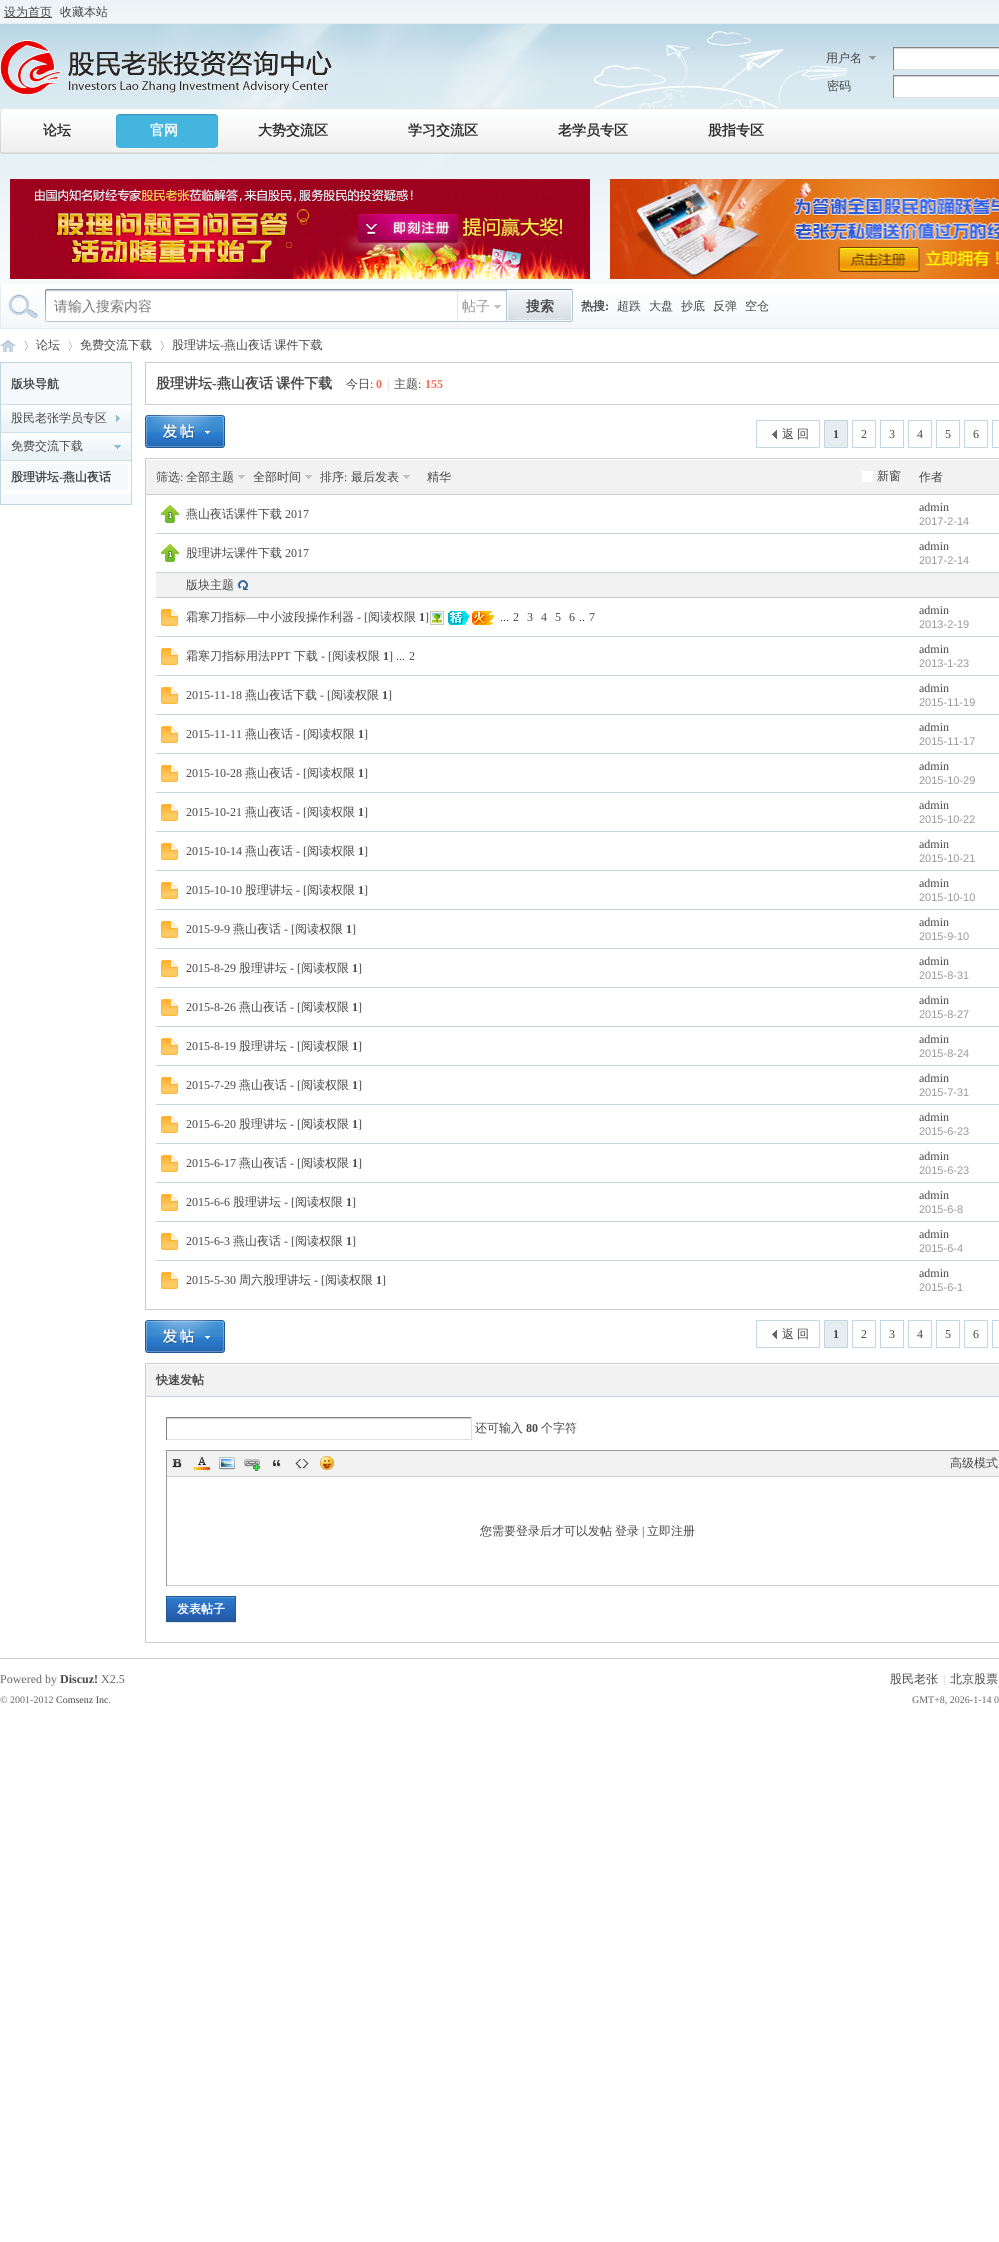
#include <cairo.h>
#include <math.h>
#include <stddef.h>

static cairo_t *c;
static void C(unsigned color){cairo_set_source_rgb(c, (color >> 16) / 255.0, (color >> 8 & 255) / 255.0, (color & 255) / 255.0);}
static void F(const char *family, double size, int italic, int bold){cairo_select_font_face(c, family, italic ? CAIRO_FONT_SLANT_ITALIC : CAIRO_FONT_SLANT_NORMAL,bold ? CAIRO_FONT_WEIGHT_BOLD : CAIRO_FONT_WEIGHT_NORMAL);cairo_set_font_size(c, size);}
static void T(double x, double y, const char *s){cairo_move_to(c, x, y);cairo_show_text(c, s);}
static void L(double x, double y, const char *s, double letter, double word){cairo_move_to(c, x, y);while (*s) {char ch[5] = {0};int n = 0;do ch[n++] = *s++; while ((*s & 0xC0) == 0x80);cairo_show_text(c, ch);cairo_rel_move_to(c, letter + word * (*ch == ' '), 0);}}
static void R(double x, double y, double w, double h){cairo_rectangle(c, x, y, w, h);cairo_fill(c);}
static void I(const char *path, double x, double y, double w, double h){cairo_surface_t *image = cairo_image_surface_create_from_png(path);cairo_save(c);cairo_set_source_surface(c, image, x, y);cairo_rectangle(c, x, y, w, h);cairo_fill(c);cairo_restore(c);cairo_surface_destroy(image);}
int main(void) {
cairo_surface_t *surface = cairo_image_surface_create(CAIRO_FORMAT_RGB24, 999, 2242);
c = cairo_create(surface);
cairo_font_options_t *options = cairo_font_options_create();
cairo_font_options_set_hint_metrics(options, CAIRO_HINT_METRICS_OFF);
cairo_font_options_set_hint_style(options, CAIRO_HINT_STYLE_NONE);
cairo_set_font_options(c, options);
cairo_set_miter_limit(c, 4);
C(0xffffff);
cairo_paint(c);
I("1.png",0,0,999,284);
C(0x464646);
R(4,17,48,1);
F("WenQuanYi Zen Hei Medium",12,0,0);
T(4,16,"设为首页");
T(60,16,"收藏本站");
I("2.png",0,40,332,55);
I("3.png",869,56,7,4);
T(826,62,"用户名");
C(0xffffff);
R(894,49,105,20);
C(0xd4d4d4);
R(893,48,106,1);
C(0x848484);
R(893,47,106,1);
C(0xe0e0e0);
R(893,69,106,1);
C(0x848484);
R(893,47,1,23);
C(0x464646);
T(827,90,"密码");
C(0xffffff);
R(894,77,105,20);
C(0xd4d4d4);
R(893,76,106,1);
C(0x848484);
R(893,75,106,1);
C(0xe0e0e0);
R(893,97,106,1);
C(0x848484);
R(893,75,1,23);
I("4.png",0,108,999,46);
F("WenQuanYi Zen Hei",14,0,1);
C(0x2f2e2e);
T(43,135,"论坛");
I("5.png",116,114,102,35);
C(0xffffff);
T(150,135,"官网");
C(0x2f2e2e);
T(258,135,"大势交流区");
T(408,135,"学习交流区");
T(558,135,"老学员专区");
T(708,135,"股指专区");
I("6.png",10,179,580,100);
I("7.png",610,179,389,100);
I("8.png",1,284,998,44);
C(0xe5edf2);
R(0,328,999,1);
R(0,284,1,45);
I("9.png",8,289,43,33);
I("10.png",51,289,406,33);
F("WenQuanYi Zen Hei Medium",14,0,0);
C(0x757575);
T(54,311,"请输入搜索内容");
I("11.png",457,289,49,33);
I("12.png",494,305,7,4);
C(0x999999);
T(462,311,"帖子");
I("13.png",506,289,67,33);
C(0xe5e5e5);
R(516,318,48,1);
F("WenQuanYi Zen Hei",14,0,1);
C(0x464646);
T(526,311,"搜索");
F("WenQuanYi Zen Hei",12,0,1);
T(581,310,"热搜");
F("Liberation Serif",12,0,1);
T(605,310,":");
F("WenQuanYi Zen Hei Medium",12,0,0);
T(617,310,"超跌");
T(649,310,"大盘");
T(681,310,"抄底");
T(713,310,"反弹");
T(745,310,"空仓");
I("14.png",0,340,16,12);
I("15.png",25,341,3,10);
T(36,349,"论坛");
I("15.png",69,341,3,10);
T(80,349,"免费交流下载");
I("15.png",161,341,3,10);
T(172,349,"股理讲坛");
F("Liberation Serif",12,0,0);
T(220,349,"-");
F("WenQuanYi Zen Hei Medium",12,0,0);
L(224,349,"燕山夜话 课件下载",0,-1);
C(0xf5f9fb);
cairo_rectangle(c,.5,362.5,131,142);
cairo_fill_preserve(c);
C(0xbdd7e3);
cairo_set_line_width(c,1);
cairo_stroke(c);
F("WenQuanYi Zen Hei",12,0,1);
C(0x464646);
T(11,388,"版块导航");
I("16.png",1,405,130,27);
C(0xcce0eb);
R(1,404,130,1);
F("WenQuanYi Zen Hei Medium",12,0,0);
C(0x464646);
T(11,422,"股民老张学员专区");
C(0xffffff);
R(1,461,130,33);
I("17.png",1,433,130,27);
C(0xcce0eb);
R(1,432,130,1);
R(1,460,130,1);
C(0x464646);
T(11,450,"免费交流下载");
C(0xf5f9fb);
R(4,464,124,26);
F("WenQuanYi Zen Hei",12,0,1);
C(0x464646);
T(11,481,"股理讲坛");
F("Liberation Serif",12,0,1);
T(59,481,"-");
F("WenQuanYi Zen Hei",12,0,1);
T(63,481,"燕山夜话");
cairo_rectangle(c,145.5,362.5,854,42);
C(0xcdcdcd);
cairo_stroke(c);
F("WenQuanYi Zen Hei",14,0,1);
C(0x464646);
T(156,388,"股理讲坛");
F("Liberation Serif",14,0,1);
T(212,388,"-");
F("WenQuanYi Zen Hei",14,0,1);
L(217,388,"燕山夜话 课件下载",0,-1);
F("WenQuanYi Zen Hei Medium",12,0,0);
T(346,388,"今日");
F("Liberation Serif",12,0,0);
T(370,388,":");
F("Liberation Serif",12,0,1);
C(0xf26c4f);
T(376,388,"0");
F("Liberation Serif",12,0,0);
C(0xcccccc);
T(387,388,"|");
F("WenQuanYi Zen Hei Medium",12,0,0);
C(0x464646);
T(394,388,"主题");
F("Liberation Serif",12,0,0);
T(418,388,":");
F("Liberation Serif",12,0,1);
C(0xf26c4f);
T(425,388,"155");
I("18.png",145,415,80,33);
I("19.png",772,430,5,9);
cairo_rectangle(c,756.5,420.5,63,27);
C(0xc2d5e3);
cairo_stroke(c);
F("WenQuanYi Zen Hei Medium",12,0,0);
C(0x464646);
T(782,438,"返");
T(797,438,"回");
C(0xe5edf2);
cairo_rectangle(c,824.5,420.5,23,27);
cairo_fill_preserve(c);
C(0xc2d5e3);
cairo_stroke(c);
F("Liberation Serif",12,0,1);
C(0x464646);
T(833,438,"1");
cairo_rectangle(c,852.5,420.5,23,27);
C(0xc2d5e3);
cairo_stroke(c);
F("Liberation Serif",12,0,0);
C(0x464646);
T(861,438,"2");
cairo_rectangle(c,880.5,420.5,23,27);
C(0xc2d5e3);
cairo_stroke(c);
C(0x464646);
T(889,438,"3");
cairo_rectangle(c,908.5,420.5,23,27);
C(0xc2d5e3);
cairo_stroke(c);
C(0x464646);
T(917,438,"4");
cairo_rectangle(c,936.5,420.5,23,27);
C(0xc2d5e3);
cairo_stroke(c);
C(0x464646);
T(945,438,"5");
cairo_rectangle(c,964.5,420.5,23,27);
C(0xc2d5e3);
cairo_stroke(c);
C(0x464646);
T(973,438,"6");
cairo_rectangle(c,992.5,420.5,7,27);
C(0xc2d5e3);
cairo_stroke(c);
cairo_rectangle(c,145.5,458.5,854,851);
C(0xcdcdcd);
cairo_stroke(c);
C(0xf2f2f2);
R(146,460,853,34);
C(0xcdcdcd);
R(146,494,853,1);
F("WenQuanYi Zen Hei Medium",12,0,0);
C(0x464646);
T(156,481,"筛选");
F("Liberation Serif",12,0,0);
T(180,481,":");
F("WenQuanYi Zen Hei Medium",12,0,0);
T(186,481,"全部主题");
I("20.png",238,475,7,4);
T(253,481,"全部时间");
I("20.png",305,475,7,4);
T(320,481,"排序");
F("Liberation Serif",12,0,0);
T(344,481,":");
F("WenQuanYi Zen Hei Medium",12,0,0);
T(351,481,"最后发表");
I("20.png",403,475,7,4);
T(427,481,"精华");
C(0xffffff);
R(862,471,11,11);
C(0x464646);
T(877,480,"新窗");
T(919,481,"作者");
F("Liberation Serif",12,0,0);
T(919,511,"admin");
F("Liberation Sans",11,0,0);
C(0x999999);
T(919,525,"2017-2-14");
C(0xc2d5e3);
R(156,533,843,1);
I("21.png",161,505,18,18);
F("WenQuanYi Zen Hei Medium",12,0,0);
C(0x464646);
T(186,518,"燕山夜话课件下载");
F("Liberation Serif",12,0,0);
T(285,518,"2017");
T(919,550,"admin");
F("Liberation Sans",11,0,0);
C(0x999999);
T(919,564,"2017-2-14");
C(0xc2d5e3);
R(156,572,843,1);
I("21.png",161,544,18,18);
F("WenQuanYi Zen Hei Medium",12,0,0);
C(0x464646);
T(186,557,"股理讲坛课件下载");
F("Liberation Serif",12,0,0);
T(285,557,"2017");
C(0xf2f2f2);
R(156,573,843,24);
C(0xcdcdcd);
R(156,597,843,1);
F("WenQuanYi Zen Hei Medium",12,0,0);
C(0x464646);
T(186,589,"版块主题");
I("22.png",238,580,10,10);
F("Liberation Serif",12,0,0);
T(919,614,"admin");
F("Liberation Sans",11,0,0);
C(0x999999);
T(919,628,"2013-2-19");
C(0xc2d5e3);
R(156,636,843,1);
I("23.png",161,609,17,17);
F("WenQuanYi Zen Hei Medium",12,0,0);
C(0x464646);
T(186,621,"霜寒刀指标");
F("Liberation Serif",12,0,0);
T(246,621,"—");
F("WenQuanYi Zen Hei Medium",12,0,0);
T(258,621,"中小波段操作利器");
F("Liberation Serif",12,0,0);
T(357,621,"- [");
F("WenQuanYi Zen Hei Medium",12,0,0);
T(368,621,"阅读权限");
F("Liberation Serif",12,0,1);
T(419,621,"1");
F("Liberation Serif",12,0,0);
T(425,621,"]");
I("24.png",430,611,14,14);
I("25.png",448,611,21,14);
I("26.png",472,611,22,14);
T(513,621,"2");
T(527,621,"3");
T(541,621,"4");
T(555,621,"5");
T(569,621,"6");
T(589,621,"7");
T(500,621,"...");
T(579,621,"..");
T(919,653,"admin");
F("Liberation Sans",11,0,0);
C(0x999999);
T(919,667,"2013-1-23");
C(0xc2d5e3);
R(156,675,843,1);
I("23.png",161,648,17,17);
F("WenQuanYi Zen Hei Medium",12,0,0);
C(0x464646);
T(186,660,"霜寒刀指标用法");
F("Liberation Serif",12,0,0);
T(270,660,"PPT");
F("WenQuanYi Zen Hei Medium",12,0,0);
T(294,660,"下载");
F("Liberation Serif",12,0,0);
T(321,660,"- [");
F("WenQuanYi Zen Hei Medium",12,0,0);
T(332,660,"阅读权限");
F("Liberation Serif",12,0,1);
T(383,660,"1");
F("Liberation Serif",12,0,0);
T(389,660,"] ...");
T(409,660,"2");
T(919,692,"admin");
F("Liberation Sans",11,0,0);
C(0x999999);
T(919,706,"2015-11-19");
C(0xc2d5e3);
R(156,714,843,1);
I("23.png",161,687,17,17);
F("Liberation Serif",12,0,0);
C(0x464646);
T(186,699,"2015-11-18");
F("WenQuanYi Zen Hei Medium",12,0,0);
T(245,699,"燕山夜话下载");
F("Liberation Serif",12,0,0);
T(320,699,"- [");
F("WenQuanYi Zen Hei Medium",12,0,0);
T(331,699,"阅读权限");
F("Liberation Serif",12,0,1);
T(382,699,"1");
F("Liberation Serif",12,0,0);
T(388,699,"]");
T(919,731,"admin");
F("Liberation Sans",11,0,0);
C(0x999999);
T(919,745,"2015-11-17");
C(0xc2d5e3);
R(156,753,843,1);
I("23.png",161,726,17,17);
F("Liberation Serif",12,0,0);
C(0x464646);
T(186,738,"2015-11-11");
F("WenQuanYi Zen Hei Medium",12,0,0);
T(245,738,"燕山夜话");
F("Liberation Serif",12,0,0);
T(296,738,"- [");
F("WenQuanYi Zen Hei Medium",12,0,0);
T(307,738,"阅读权限");
F("Liberation Serif",12,0,1);
T(358,738,"1");
F("Liberation Serif",12,0,0);
T(364,738,"]");
T(919,770,"admin");
F("Liberation Sans",11,0,0);
C(0x999999);
T(919,784,"2015-10-29");
C(0xc2d5e3);
R(156,792,843,1);
I("23.png",161,765,17,17);
F("Liberation Serif",12,0,0);
C(0x464646);
T(186,777,"2015-10-28");
F("WenQuanYi Zen Hei Medium",12,0,0);
T(245,777,"燕山夜话");
F("Liberation Serif",12,0,0);
T(296,777,"- [");
F("WenQuanYi Zen Hei Medium",12,0,0);
T(307,777,"阅读权限");
F("Liberation Serif",12,0,1);
T(358,777,"1");
F("Liberation Serif",12,0,0);
T(364,777,"]");
T(919,809,"admin");
F("Liberation Sans",11,0,0);
C(0x999999);
T(919,823,"2015-10-22");
C(0xc2d5e3);
R(156,831,843,1);
I("23.png",161,804,17,17);
F("Liberation Serif",12,0,0);
C(0x464646);
T(186,816,"2015-10-21");
F("WenQuanYi Zen Hei Medium",12,0,0);
T(245,816,"燕山夜话");
F("Liberation Serif",12,0,0);
T(296,816,"- [");
F("WenQuanYi Zen Hei Medium",12,0,0);
T(307,816,"阅读权限");
F("Liberation Serif",12,0,1);
T(358,816,"1");
F("Liberation Serif",12,0,0);
T(364,816,"]");
T(919,848,"admin");
F("Liberation Sans",11,0,0);
C(0x999999);
T(919,862,"2015-10-21");
C(0xc2d5e3);
R(156,870,843,1);
I("23.png",161,843,17,17);
F("Liberation Serif",12,0,0);
C(0x464646);
T(186,855,"2015-10-14");
F("WenQuanYi Zen Hei Medium",12,0,0);
T(245,855,"燕山夜话");
F("Liberation Serif",12,0,0);
T(296,855,"- [");
F("WenQuanYi Zen Hei Medium",12,0,0);
T(307,855,"阅读权限");
F("Liberation Serif",12,0,1);
T(358,855,"1");
F("Liberation Serif",12,0,0);
T(364,855,"]");
T(919,887,"admin");
F("Liberation Sans",11,0,0);
C(0x999999);
T(919,901,"2015-10-10");
C(0xc2d5e3);
R(156,909,843,1);
I("23.png",161,882,17,17);
F("Liberation Serif",12,0,0);
C(0x464646);
T(186,894,"2015-10-10");
F("WenQuanYi Zen Hei Medium",12,0,0);
T(245,894,"股理讲坛");
F("Liberation Serif",12,0,0);
T(296,894,"- [");
F("WenQuanYi Zen Hei Medium",12,0,0);
T(307,894,"阅读权限");
F("Liberation Serif",12,0,1);
T(358,894,"1");
F("Liberation Serif",12,0,0);
T(364,894,"]");
T(919,926,"admin");
F("Liberation Sans",11,0,0);
C(0x999999);
T(919,940,"2015-9-10");
C(0xc2d5e3);
R(156,948,843,1);
I("23.png",161,921,17,17);
F("Liberation Serif",12,0,0);
C(0x464646);
T(186,933,"2015-9-9");
F("WenQuanYi Zen Hei Medium",12,0,0);
T(233,933,"燕山夜话");
F("Liberation Serif",12,0,0);
T(284,933,"- [");
F("WenQuanYi Zen Hei Medium",12,0,0);
T(295,933,"阅读权限");
F("Liberation Serif",12,0,1);
T(346,933,"1");
F("Liberation Serif",12,0,0);
T(352,933,"]");
T(919,965,"admin");
F("Liberation Sans",11,0,0);
C(0x999999);
T(919,979,"2015-8-31");
C(0xc2d5e3);
R(156,987,843,1);
I("23.png",161,960,17,17);
F("Liberation Serif",12,0,0);
C(0x464646);
T(186,972,"2015-8-29");
F("WenQuanYi Zen Hei Medium",12,0,0);
T(239,972,"股理讲坛");
F("Liberation Serif",12,0,0);
T(290,972,"- [");
F("WenQuanYi Zen Hei Medium",12,0,0);
T(301,972,"阅读权限");
F("Liberation Serif",12,0,1);
T(352,972,"1");
F("Liberation Serif",12,0,0);
T(358,972,"]");
T(919,1004,"admin");
F("Liberation Sans",11,0,0);
C(0x999999);
T(919,1018,"2015-8-27");
C(0xc2d5e3);
R(156,1026,843,1);
I("23.png",161,999,17,17);
F("Liberation Serif",12,0,0);
C(0x464646);
T(186,1011,"2015-8-26");
F("WenQuanYi Zen Hei Medium",12,0,0);
T(239,1011,"燕山夜话");
F("Liberation Serif",12,0,0);
T(290,1011,"- [");
F("WenQuanYi Zen Hei Medium",12,0,0);
T(301,1011,"阅读权限");
F("Liberation Serif",12,0,1);
T(352,1011,"1");
F("Liberation Serif",12,0,0);
T(358,1011,"]");
T(919,1043,"admin");
F("Liberation Sans",11,0,0);
C(0x999999);
T(919,1057,"2015-8-24");
C(0xc2d5e3);
R(156,1065,843,1);
I("23.png",161,1038,17,17);
F("Liberation Serif",12,0,0);
C(0x464646);
T(186,1050,"2015-8-19");
F("WenQuanYi Zen Hei Medium",12,0,0);
T(239,1050,"股理讲坛");
F("Liberation Serif",12,0,0);
T(290,1050,"- [");
F("WenQuanYi Zen Hei Medium",12,0,0);
T(301,1050,"阅读权限");
F("Liberation Serif",12,0,1);
T(352,1050,"1");
F("Liberation Serif",12,0,0);
T(358,1050,"]");
T(919,1082,"admin");
F("Liberation Sans",11,0,0);
C(0x999999);
T(919,1096,"2015-7-31");
C(0xc2d5e3);
R(156,1104,843,1);
I("23.png",161,1077,17,17);
F("Liberation Serif",12,0,0);
C(0x464646);
T(186,1089,"2015-7-29");
F("WenQuanYi Zen Hei Medium",12,0,0);
T(239,1089,"燕山夜话");
F("Liberation Serif",12,0,0);
T(290,1089,"- [");
F("WenQuanYi Zen Hei Medium",12,0,0);
T(301,1089,"阅读权限");
F("Liberation Serif",12,0,1);
T(352,1089,"1");
F("Liberation Serif",12,0,0);
T(358,1089,"]");
T(919,1121,"admin");
F("Liberation Sans",11,0,0);
C(0x999999);
T(919,1135,"2015-6-23");
C(0xc2d5e3);
R(156,1143,843,1);
I("23.png",161,1116,17,17);
F("Liberation Serif",12,0,0);
C(0x464646);
T(186,1128,"2015-6-20");
F("WenQuanYi Zen Hei Medium",12,0,0);
T(239,1128,"股理讲坛");
F("Liberation Serif",12,0,0);
T(290,1128,"- [");
F("WenQuanYi Zen Hei Medium",12,0,0);
T(301,1128,"阅读权限");
F("Liberation Serif",12,0,1);
T(352,1128,"1");
F("Liberation Serif",12,0,0);
T(358,1128,"]");
T(919,1160,"admin");
F("Liberation Sans",11,0,0);
C(0x999999);
T(919,1174,"2015-6-23");
C(0xc2d5e3);
R(156,1182,843,1);
I("23.png",161,1155,17,17);
F("Liberation Serif",12,0,0);
C(0x464646);
T(186,1167,"2015-6-17");
F("WenQuanYi Zen Hei Medium",12,0,0);
T(239,1167,"燕山夜话");
F("Liberation Serif",12,0,0);
T(290,1167,"- [");
F("WenQuanYi Zen Hei Medium",12,0,0);
T(301,1167,"阅读权限");
F("Liberation Serif",12,0,1);
T(352,1167,"1");
F("Liberation Serif",12,0,0);
T(358,1167,"]");
T(919,1199,"admin");
F("Liberation Sans",11,0,0);
C(0x999999);
T(919,1213,"2015-6-8");
C(0xc2d5e3);
R(156,1221,843,1);
I("23.png",161,1194,17,17);
F("Liberation Serif",12,0,0);
C(0x464646);
T(186,1206,"2015-6-6");
F("WenQuanYi Zen Hei Medium",12,0,0);
T(233,1206,"股理讲坛");
F("Liberation Serif",12,0,0);
T(284,1206,"- [");
F("WenQuanYi Zen Hei Medium",12,0,0);
T(295,1206,"阅读权限");
F("Liberation Serif",12,0,1);
T(346,1206,"1");
F("Liberation Serif",12,0,0);
T(352,1206,"]");
T(919,1238,"admin");
F("Liberation Sans",11,0,0);
C(0x999999);
T(919,1252,"2015-6-4");
C(0xc2d5e3);
R(156,1260,843,1);
I("23.png",161,1233,17,17);
F("Liberation Serif",12,0,0);
C(0x464646);
T(186,1245,"2015-6-3");
F("WenQuanYi Zen Hei Medium",12,0,0);
T(233,1245,"燕山夜话");
F("Liberation Serif",12,0,0);
T(284,1245,"- [");
F("WenQuanYi Zen Hei Medium",12,0,0);
T(295,1245,"阅读权限");
F("Liberation Serif",12,0,1);
T(346,1245,"1");
F("Liberation Serif",12,0,0);
T(352,1245,"]");
I("23.png",161,1272,17,17);
T(186,1284,"2015-5-30");
F("WenQuanYi Zen Hei Medium",12,0,0);
T(239,1284,"周六股理讲坛");
F("Liberation Serif",12,0,0);
T(314,1284,"- [");
F("WenQuanYi Zen Hei Medium",12,0,0);
T(325,1284,"阅读权限");
F("Liberation Serif",12,0,1);
T(376,1284,"1");
F("Liberation Serif",12,0,0);
T(382,1284,"]");
T(919,1277,"admin");
F("Liberation Sans",11,0,0);
C(0x999999);
T(919,1291,"2015-6-1");
I("18.png",145,1320,80,33);
I("19.png",772,1330,5,9);
cairo_rectangle(c,756.5,1320.5,63,27);
C(0xc2d5e3);
cairo_stroke(c);
F("WenQuanYi Zen Hei Medium",12,0,0);
C(0x464646);
T(782,1338,"返");
T(797,1338,"回");
C(0xe5edf2);
cairo_rectangle(c,824.5,1320.5,23,27);
cairo_fill_preserve(c);
C(0xc2d5e3);
cairo_stroke(c);
F("Liberation Serif",12,0,1);
C(0x464646);
T(833,1338,"1");
cairo_rectangle(c,852.5,1320.5,23,27);
C(0xc2d5e3);
cairo_stroke(c);
F("Liberation Serif",12,0,0);
C(0x464646);
T(861,1338,"2");
cairo_rectangle(c,880.5,1320.5,23,27);
C(0xc2d5e3);
cairo_stroke(c);
C(0x464646);
T(889,1338,"3");
cairo_rectangle(c,908.5,1320.5,23,27);
C(0xc2d5e3);
cairo_stroke(c);
C(0x464646);
T(917,1338,"4");
cairo_rectangle(c,936.5,1320.5,23,27);
C(0xc2d5e3);
cairo_stroke(c);
C(0x464646);
T(945,1338,"5");
cairo_rectangle(c,964.5,1320.5,23,27);
C(0xc2d5e3);
cairo_stroke(c);
C(0x464646);
T(973,1338,"6");
cairo_rectangle(c,992.5,1320.5,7,27);
C(0xc2d5e3);
cairo_stroke(c);
cairo_rectangle(c,145.5,1363.5,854,279);
C(0xcdcdcd);
cairo_stroke(c);
C(0xf2f2f2);
R(146,1365,853,31);
C(0xc2d5e3);
R(146,1396,853,1);
F("WenQuanYi Zen Hei",12,0,1);
C(0x464646);
T(156,1384,"快速发帖");
C(0xd4d4d4);
R(166,1418,306,1);
C(0x848484);
R(166,1417,306,1);
C(0xe0e0e0);
R(471,1417,1,23);
R(166,1439,306,1);
C(0x848484);
R(166,1417,1,23);
F("WenQuanYi Zen Hei Medium",12,0,0);
C(0x464646);
T(475,1432,"还可输入");
F("Liberation Serif",12,0,1);
T(526,1432,"80");
F("WenQuanYi Zen Hei Medium",12,0,0);
T(541,1432,"个字符");
C(0x999999);
R(166,1450,833,1);
C(0xcccccc);
R(166,1585,833,1);
C(0x999999);
R(166,1450,1,136);
C(0xf2f2f2);
R(167,1451,832,25);
C(0xcdcdcd);
R(167,1476,832,1);
I("27.png",172,1459,11,9);
I("28.png",194,1457,16,13);
I("29.png",219,1457,16,13);
I("30.png",244,1459,17,13);
I("31.png",272,1460,9,7);
I("32.png",295,1459,14,10);
I("33.png",319,1456,15,14);
C(0x464646);
T(950,1467,"高级模式");
T(480,1535,"您需要登录后才可以发帖");
T(615,1535,"登录");
F("Liberation Serif",12,0,0);
T(642,1535,"|");
F("WenQuanYi Zen Hei Medium",12,0,0);
T(647,1535,"立即注册");
C(0xe5e5e5);
R(166,1622,70,1);
I("34.png",167,1597,68,24);
cairo_rectangle(c,166.5,1596.5,69,25);
C(0x235994);
cairo_stroke(c);
F("WenQuanYi Zen Hei",12,0,1);
C(0xffffff);
T(177,1613,"发表帖子");
C(0xcdcdcd);
R(0,1658,999,1);
F("Liberation Serif",12,0,0);
C(0x666666);
T(0,1683,"Powered by");
F("Liberation Serif",12,0,1);
C(0x464646);
T(60,1683,"Discuz!");
F("Liberation Serif",12,0,0);
C(0x666666);
T(101,1683,"X2.5");
F("Liberation Serif",10,0,0);
T(0,1703,"© 2001-2012");
C(0x464646);
T(56,1703,"Comsenz Inc.");
F("WenQuanYi Zen Hei Medium",12,0,0);
T(890,1683,"股民老张");
F("Liberation Serif",12,0,0);
C(0xcccccc);
T(943,1683,"|");
F("WenQuanYi Zen Hei Medium",12,0,0);
C(0x464646);
T(950,1683,"北京股票");
F("Liberation Serif",10,0,0);
C(0x666666);
T(912,1703,"GMT+8, 2026-1-14 0");
cairo_surface_write_to_png(surface, "o.png");
cairo_font_options_destroy(options);
cairo_destroy(c);
cairo_surface_destroy(surface);
return 0;
}
